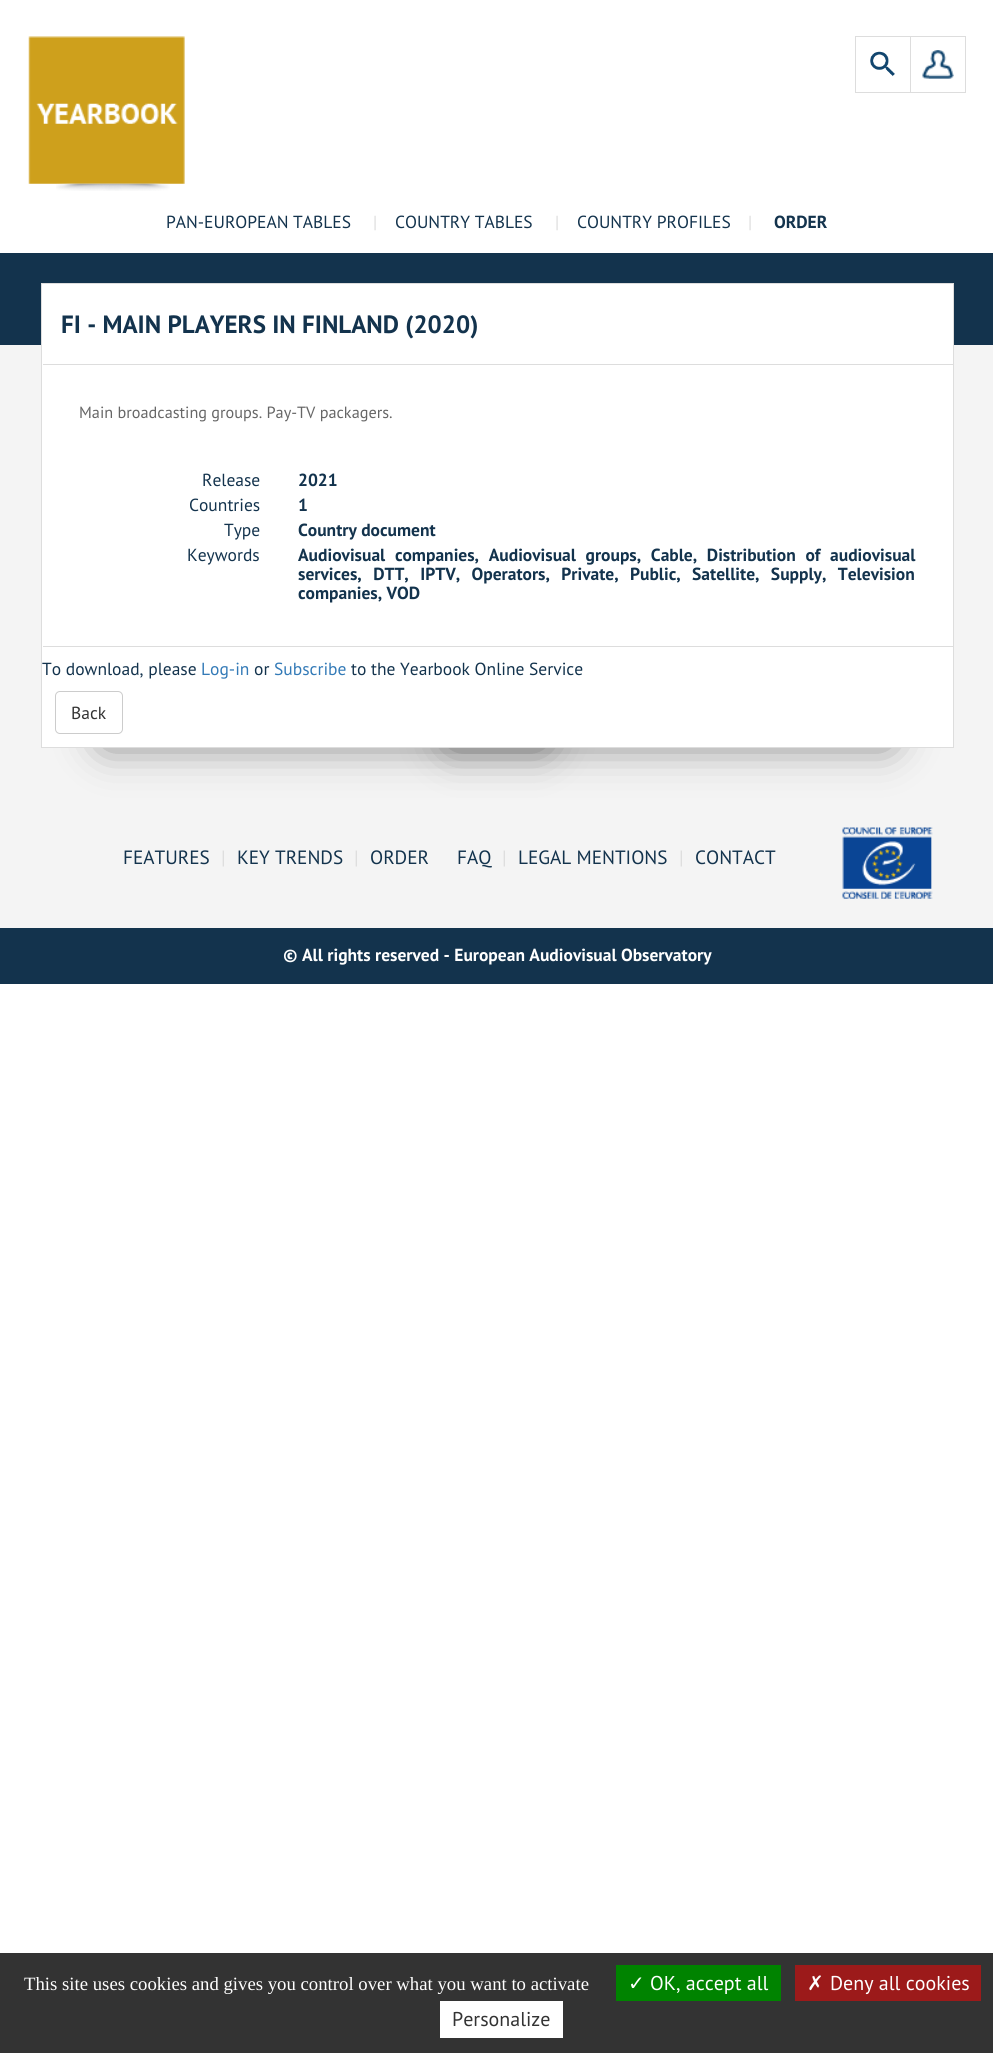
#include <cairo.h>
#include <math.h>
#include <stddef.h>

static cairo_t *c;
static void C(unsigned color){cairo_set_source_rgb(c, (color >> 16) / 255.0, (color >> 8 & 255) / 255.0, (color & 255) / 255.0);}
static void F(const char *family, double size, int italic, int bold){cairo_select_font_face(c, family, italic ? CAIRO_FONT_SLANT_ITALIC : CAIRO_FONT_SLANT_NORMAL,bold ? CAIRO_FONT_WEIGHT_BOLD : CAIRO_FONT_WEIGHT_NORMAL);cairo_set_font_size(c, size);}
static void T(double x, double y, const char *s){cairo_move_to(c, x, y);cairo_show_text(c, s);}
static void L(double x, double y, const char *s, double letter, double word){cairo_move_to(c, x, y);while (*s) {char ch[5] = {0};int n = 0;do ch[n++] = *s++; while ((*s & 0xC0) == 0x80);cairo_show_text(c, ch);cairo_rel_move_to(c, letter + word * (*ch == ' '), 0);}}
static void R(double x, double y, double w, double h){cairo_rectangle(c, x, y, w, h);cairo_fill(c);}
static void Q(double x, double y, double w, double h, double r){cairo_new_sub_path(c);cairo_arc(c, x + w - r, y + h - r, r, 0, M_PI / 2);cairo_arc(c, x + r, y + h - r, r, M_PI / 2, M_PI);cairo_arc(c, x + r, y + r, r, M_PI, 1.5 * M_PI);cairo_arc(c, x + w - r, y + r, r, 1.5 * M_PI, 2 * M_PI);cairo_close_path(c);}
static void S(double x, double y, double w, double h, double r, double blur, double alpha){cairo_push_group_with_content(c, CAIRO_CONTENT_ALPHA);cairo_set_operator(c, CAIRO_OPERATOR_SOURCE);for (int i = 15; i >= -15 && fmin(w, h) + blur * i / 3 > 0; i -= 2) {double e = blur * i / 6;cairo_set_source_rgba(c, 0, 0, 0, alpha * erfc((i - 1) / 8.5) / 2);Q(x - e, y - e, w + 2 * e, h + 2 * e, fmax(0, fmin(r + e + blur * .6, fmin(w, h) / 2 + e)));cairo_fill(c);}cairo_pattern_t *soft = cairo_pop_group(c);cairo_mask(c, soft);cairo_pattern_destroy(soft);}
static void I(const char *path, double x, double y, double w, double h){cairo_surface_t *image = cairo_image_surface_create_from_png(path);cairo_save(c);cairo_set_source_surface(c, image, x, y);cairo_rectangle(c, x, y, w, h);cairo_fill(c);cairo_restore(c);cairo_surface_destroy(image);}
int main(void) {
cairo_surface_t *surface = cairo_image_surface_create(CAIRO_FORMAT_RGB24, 993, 2053);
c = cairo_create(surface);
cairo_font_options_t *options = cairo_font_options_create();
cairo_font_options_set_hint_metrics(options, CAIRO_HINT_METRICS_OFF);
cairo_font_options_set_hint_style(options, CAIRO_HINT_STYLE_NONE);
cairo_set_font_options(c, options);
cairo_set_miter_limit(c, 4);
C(0xffffff);
cairo_paint(c);
I("1.png",28,36,157,148);
I("2.png",56,183,114,8);
I("3.png",870,51,25,26);
I("4.png",922,50,32,29);
cairo_rectangle(c,910.5,36.5,55,56);
C(0xdddddd);
cairo_set_line_width(c,1);
cairo_stroke(c);
cairo_rectangle(c,855.5,36.5,55,56);
cairo_stroke(c);
F("PT Sans",17.5,0,0);
C(0x13334d);
T(166,228,"PAN-EUROPEAN TABLES");
C(0xdddddd);
T(373,228,"|");
C(0x13334d);
T(395,228,"COUNTRY TABLES");
C(0xdddddd);
T(555,228,"|");
C(0x13334d);
T(577,228,"COUNTRY PROFILES");
C(0xdddddd);
T(748,228,"|");
F("PT Sans",17.5,0,1);
C(0x13334d);
T(774,228,"ORDER");
R(0,253,993,92);
C(0xf4f4f4);
R(0,345,993,583);
C(0x000000);
S(105,674,438,69,0,22,.52);
S(451,673,438,70,0,22,.52);
C(0xffffff);
cairo_rectangle(c,41.5,283.5,912,464);
cairo_fill_preserve(c);
C(0xdddddd);
cairo_stroke(c);
F("PT Sans",25,0,1);
C(0x13334d);
T(61,333,"FI - MAIN PLAYERS IN FINLAND (2020)");
C(0xdddddd);
R(43,364,910,1);
R(43,646,910,1);
F("PT Sans",16.25,0,0);
C(0x666666);
T(79,418,"Main broadcasting groups. Pay-TV packagers.");
F("PT Sans",17.5,0,0);
C(0x13334d);
T(202,486,"Release");
F("PT Sans",17.5,0,1);
T(298,486,"2021");
F("PT Sans",17.5,0,0);
T(189,511,"Countries");
F("PT Sans",17.5,0,1);
T(298,511,"1");
F("PT Sans",17.5,0,0);
T(224,536,"Type");
F("PT Sans",17.5,0,1);
T(298,536,"Country document");
F("PT Sans",17.5,0,0);
T(187,561,"Keywords");
F("PT Sans",17.5,0,1);
L(298,561,"Audiovisual companies, Audiovisual groups, Cable, Distribution of audiovisual",0,5.25);
L(298,580,"services, DTT, IPTV, Operators, Private, Public, Satellite, Supply, Television",0,7);
T(298,599,"companies, VOD");
F("PT Sans",17.5,0,0);
T(42,675,"To download, please");
C(0x337ab7);
T(201,675,"Log-in");
C(0x13334d);
T(254,675,"or");
C(0x337ab7);
T(274,675,"Subscribe");
C(0x13334d);
T(351,675,"to the Yearbook Online Service");
Q(55.5,691.5,67,42,4.5);
C(0xcccccc);
cairo_stroke(c);
C(0x333333);
T(71,719,"Back");
F("PT Sans",19.25,0,0);
C(0x13334d);
T(123,864,"FEATURES");
C(0xdddddd);
T(221,864,"|");
C(0x13334d);
T(237,864,"KEY TRENDS");
C(0xdddddd);
T(354,864,"|");
C(0x13334d);
T(370,864,"ORDER");
T(457,864,"FAQ");
C(0xdddddd);
T(502,864,"|");
C(0x13334d);
T(518,864,"LEGAL MENTIONS");
C(0xdddddd);
T(679,864,"|");
C(0x13334d);
T(695,864,"CONTACT");
I("5.png",842,827,91,72);
R(0,928,993,56);
F("PT Sans",17.5,0,1);
C(0xffffff);
T(283,961,"© All rights reserved - European Audiovisual Observatory");
C(0x333333);
R(0,1953,993,100);
F("Liberation Serif",18.75,0,0);
C(0xffffff);
T(24,1990,"This site uses cookies and gives you control over what you want to activate");
C(0x008300);
R(616,1965,165,36);
F("DejaVu Sans",20,0,0);
C(0xffffff);
T(628,1990,"✓");
F("PT Sans",20,0,0);
T(650,1990,"OK, accept all");
C(0x9c1a1a);
R(795,1965,186,36);
F("DejaVu Sans",20,0,0);
C(0xffffff);
T(807,1990,"✗");
F("PT Sans",20,0,0);
T(830,1990,"Deny all cookies");
R(440,2001,123,37);
C(0x333333);
T(452,2026,"Personalize");
cairo_surface_write_to_png(surface, "o.png");
cairo_font_options_destroy(options);
cairo_destroy(c);
cairo_surface_destroy(surface);
return 0;
}
